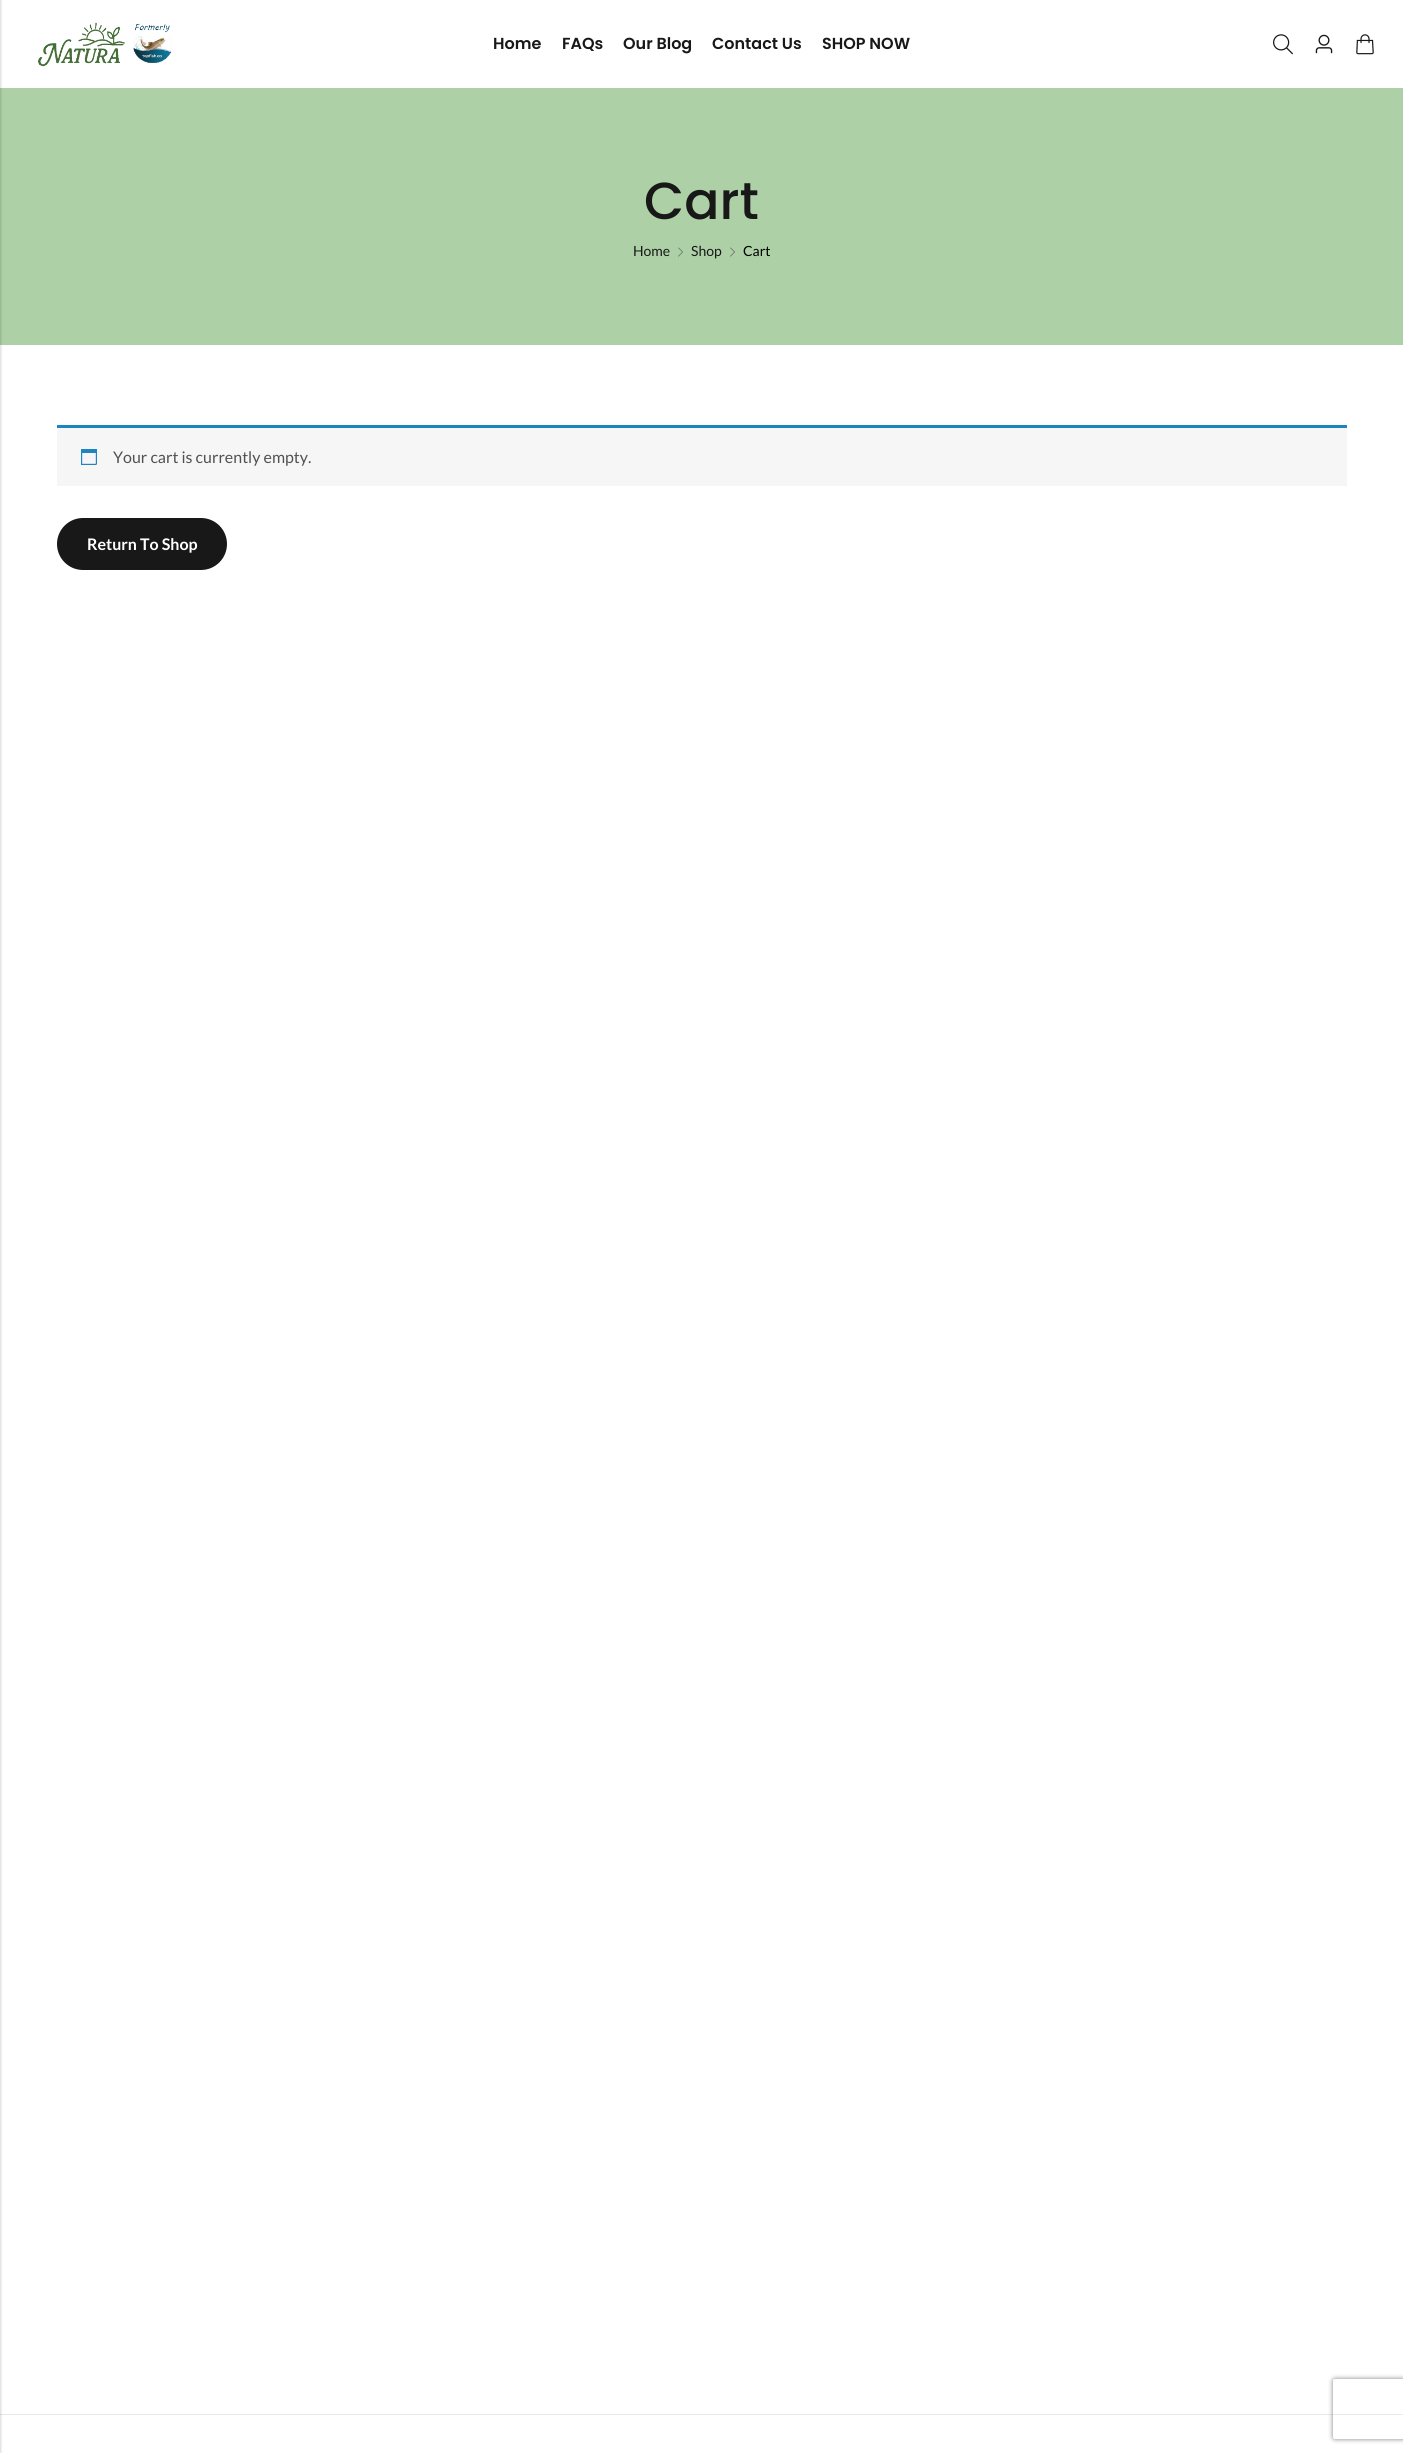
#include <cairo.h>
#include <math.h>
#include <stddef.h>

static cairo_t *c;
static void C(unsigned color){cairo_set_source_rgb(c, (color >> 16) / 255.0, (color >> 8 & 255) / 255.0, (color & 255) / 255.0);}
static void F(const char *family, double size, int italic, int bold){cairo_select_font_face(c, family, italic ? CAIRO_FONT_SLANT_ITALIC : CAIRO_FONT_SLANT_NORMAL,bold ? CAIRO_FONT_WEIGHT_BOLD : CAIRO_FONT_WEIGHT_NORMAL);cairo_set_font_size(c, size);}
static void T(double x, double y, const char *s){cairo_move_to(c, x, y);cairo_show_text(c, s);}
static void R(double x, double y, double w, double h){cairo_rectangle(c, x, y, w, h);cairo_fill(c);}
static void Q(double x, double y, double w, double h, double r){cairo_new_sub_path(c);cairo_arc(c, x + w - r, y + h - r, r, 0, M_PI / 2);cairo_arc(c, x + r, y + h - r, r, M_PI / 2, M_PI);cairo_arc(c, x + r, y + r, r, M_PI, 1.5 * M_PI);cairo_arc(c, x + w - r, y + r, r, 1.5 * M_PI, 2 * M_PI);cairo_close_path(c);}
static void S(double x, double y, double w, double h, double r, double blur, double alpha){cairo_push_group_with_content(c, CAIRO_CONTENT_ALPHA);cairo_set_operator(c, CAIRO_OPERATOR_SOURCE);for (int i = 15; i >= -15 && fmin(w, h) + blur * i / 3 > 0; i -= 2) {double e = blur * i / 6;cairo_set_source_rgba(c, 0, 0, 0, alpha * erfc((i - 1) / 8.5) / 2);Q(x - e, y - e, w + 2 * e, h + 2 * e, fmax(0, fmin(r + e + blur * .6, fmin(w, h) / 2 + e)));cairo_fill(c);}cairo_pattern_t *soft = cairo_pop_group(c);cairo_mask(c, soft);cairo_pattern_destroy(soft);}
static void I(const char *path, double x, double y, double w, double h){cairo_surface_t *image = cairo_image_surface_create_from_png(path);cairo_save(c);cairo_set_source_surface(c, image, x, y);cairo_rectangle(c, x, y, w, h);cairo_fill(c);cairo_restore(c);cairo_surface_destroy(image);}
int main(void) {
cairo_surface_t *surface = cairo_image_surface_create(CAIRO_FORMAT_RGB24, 1403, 2453);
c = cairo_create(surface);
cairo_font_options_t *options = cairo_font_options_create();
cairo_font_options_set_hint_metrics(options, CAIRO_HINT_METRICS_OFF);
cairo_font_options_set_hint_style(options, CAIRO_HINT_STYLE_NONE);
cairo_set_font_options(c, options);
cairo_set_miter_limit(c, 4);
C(0xffffff);
cairo_paint(c);
C(0xadd0a6);
R(0,88,1403,257);
C(0xe9e9e9);
R(0,2414,1403,1);
C(0x000000);
S(-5,0,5,2453,0,1.5,.15);
S(-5,0,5,2453,0,1.5,.15);
I("1.png",38,22,134,45);
F("Poppins SemiBold",16,0,0);
C(0x181818);
T(493,49,"Home");
T(562,49,"FAQs");
T(623,49,"Our Blog");
T(712,49,"Contact Us");
T(822,49,"SHOP NOW");
I("2.png",1273,34,20,21);
I("3.png",1315,34,18,20);
I("4.png",1356,34,18,21);
F("Poppins Medium",52,0,0);
T(644,219,"Cart");
F("Lato",14,0,0);
T(633,256,"Home");
I("5.png",678,247,5,10);
T(691,256,"Shop");
I("5.png",730,247,5,10);
C(0x000000);
T(743,256,"Cart");
C(0xf7f6f7);
R(57,428,1290,58);
C(0x1e85be);
R(57,425,1290,3);
I("6.png",81,449,16,16);
F("Lato",16,0,0);
C(0x515151);
T(113,463,"Your cart is currently empty.");
C(0x181818);
Q(57,518,170,52,26);
cairo_fill(c);
F("Lato",16,0,1);
C(0xffffff);
T(87,550,"Return To Shop");
cairo_save(c);
cairo_set_fill_rule(c,CAIRO_FILL_RULE_EVEN_ODD);
cairo_new_path(c);
cairo_move_to(c,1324,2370);
cairo_line_to(c,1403,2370);
cairo_line_to(c,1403,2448);
cairo_line_to(c,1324,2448);
cairo_close_path(c);
cairo_move_to(c,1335,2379);
cairo_line_to(c,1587,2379);
cairo_curve_to(c,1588,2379,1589,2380,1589,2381);
cairo_line_to(c,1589,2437);
cairo_curve_to(c,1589,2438,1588,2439,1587,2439);
cairo_line_to(c,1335,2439);
cairo_curve_to(c,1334,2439,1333,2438,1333,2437);
cairo_line_to(c,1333,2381);
cairo_curve_to(c,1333,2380,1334,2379,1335,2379);
cairo_close_path(c);
cairo_clip(c);
C(0x808080);
S(1333,2379,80,60,2,2.5,1);
cairo_restore(c);
cairo_surface_write_to_png(surface, "o.png");
cairo_font_options_destroy(options);
cairo_destroy(c);
cairo_surface_destroy(surface);
return 0;
}
